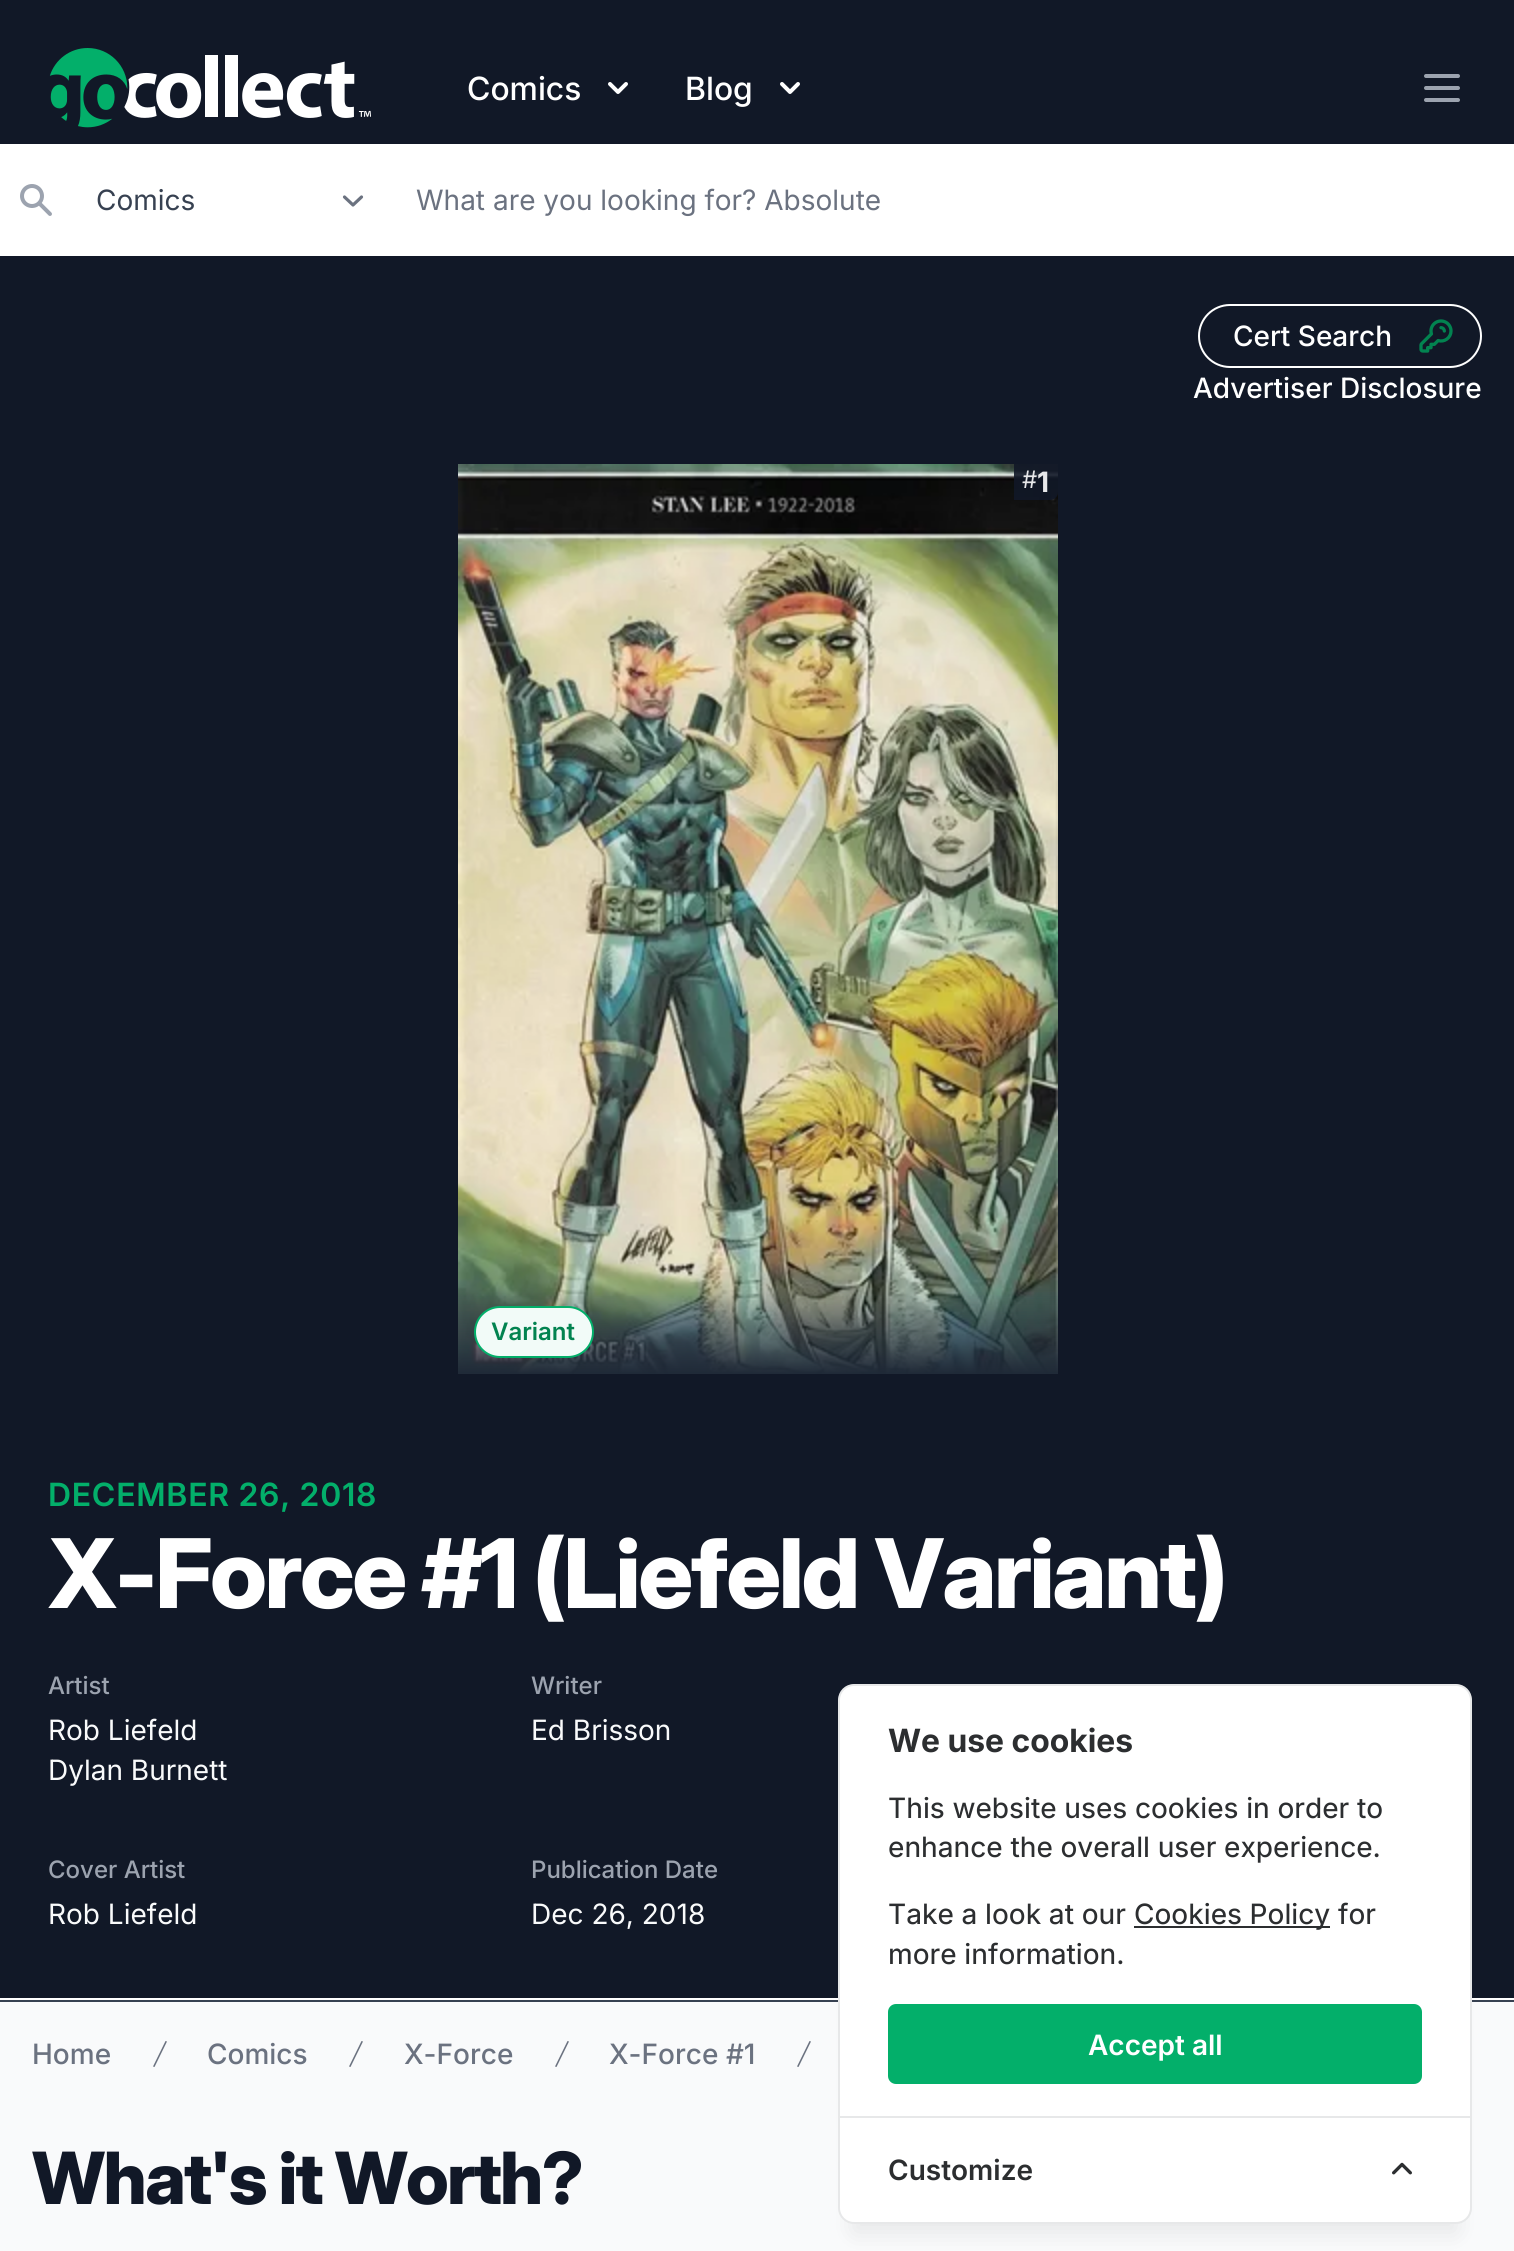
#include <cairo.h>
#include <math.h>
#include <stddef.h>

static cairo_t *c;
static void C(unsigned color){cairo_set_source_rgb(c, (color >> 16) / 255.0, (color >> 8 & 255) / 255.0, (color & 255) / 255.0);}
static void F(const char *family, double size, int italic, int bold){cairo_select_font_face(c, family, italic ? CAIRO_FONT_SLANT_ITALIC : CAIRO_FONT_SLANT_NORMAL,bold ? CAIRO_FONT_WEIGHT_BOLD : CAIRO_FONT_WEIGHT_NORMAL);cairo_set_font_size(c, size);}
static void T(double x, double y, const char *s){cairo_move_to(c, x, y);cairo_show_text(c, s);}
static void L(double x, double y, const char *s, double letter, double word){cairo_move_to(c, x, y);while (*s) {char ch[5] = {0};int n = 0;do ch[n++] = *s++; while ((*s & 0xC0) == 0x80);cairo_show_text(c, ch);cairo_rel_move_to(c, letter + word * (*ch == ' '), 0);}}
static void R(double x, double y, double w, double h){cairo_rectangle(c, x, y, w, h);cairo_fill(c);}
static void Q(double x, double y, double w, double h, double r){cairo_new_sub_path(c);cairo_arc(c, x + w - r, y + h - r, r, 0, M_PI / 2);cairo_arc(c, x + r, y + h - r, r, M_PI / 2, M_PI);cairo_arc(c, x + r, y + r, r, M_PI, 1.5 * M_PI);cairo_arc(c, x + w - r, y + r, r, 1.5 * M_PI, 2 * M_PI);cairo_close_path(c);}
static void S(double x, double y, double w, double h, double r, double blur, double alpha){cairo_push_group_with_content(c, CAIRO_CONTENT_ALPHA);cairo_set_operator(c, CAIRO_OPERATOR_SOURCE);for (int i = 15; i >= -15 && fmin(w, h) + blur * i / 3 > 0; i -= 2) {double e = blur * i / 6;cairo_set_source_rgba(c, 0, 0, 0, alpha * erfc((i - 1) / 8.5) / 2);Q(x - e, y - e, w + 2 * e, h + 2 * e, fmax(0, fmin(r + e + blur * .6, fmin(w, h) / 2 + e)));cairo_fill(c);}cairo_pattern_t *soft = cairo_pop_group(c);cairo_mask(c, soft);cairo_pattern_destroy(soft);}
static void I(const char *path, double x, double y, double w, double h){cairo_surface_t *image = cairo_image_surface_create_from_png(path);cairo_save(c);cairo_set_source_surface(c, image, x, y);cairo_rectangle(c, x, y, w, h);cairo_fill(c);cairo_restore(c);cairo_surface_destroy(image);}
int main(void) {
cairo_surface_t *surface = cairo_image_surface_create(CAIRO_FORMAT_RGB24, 1514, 2251);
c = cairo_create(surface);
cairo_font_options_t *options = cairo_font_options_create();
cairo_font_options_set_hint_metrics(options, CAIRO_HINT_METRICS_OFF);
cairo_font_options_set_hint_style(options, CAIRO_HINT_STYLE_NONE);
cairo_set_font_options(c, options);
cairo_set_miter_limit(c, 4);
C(0x111827);
cairo_paint(c);
I("1.png",49,48,322,80);
F("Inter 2 Medium",32,0,0);
C(0xffffff);
T(467,100,"Comics");
I("2.png",608,82,20,12);
T(685,100,"Blog");
I("2.png",780,82,20,12);
cairo_new_path(c);
cairo_move_to(c,1426,76);
cairo_line_to(c,1458,76);
cairo_move_to(c,1426,88);
cairo_line_to(c,1458,88);
cairo_move_to(c,1426,100);
cairo_line_to(c,1458,100);
C(0x9ca3af);
cairo_set_line_width(c,4);
cairo_set_line_cap(c,CAIRO_LINE_CAP_ROUND);
cairo_set_line_join(c,CAIRO_LINE_JOIN_ROUND);
cairo_stroke(c);
C(0xffffff);
R(0,144,1514,112);
I("3.png",20,184,32,32);
cairo_new_path(c);
cairo_move_to(c,344.5,197);
cairo_line_to(c,353,205);
cairo_line_to(c,361.5,197);
C(0x6b7280);
cairo_set_line_width(c,3.2);
cairo_stroke(c);
F("Inter",28,0,0);
C(0x374151);
T(96,210,"Comics");
C(0x6b7280);
T(416,210,"What are you looking for? Absolute");
Q(1199,305,282,62,31);
C(0xffffff);
cairo_set_line_width(c,2);
cairo_set_line_cap(c,CAIRO_LINE_CAP_BUTT);
cairo_set_line_join(c,CAIRO_LINE_JOIN_MITER);
cairo_stroke(c);
F("Inter Medium",28,0,0);
T(1233,346,"Cert Search");
I("4.png",1419,319,34,34);
T(1193,398,"Advertiser Disclosure");
R(0,1998,1514,2);
I("5.png",458,464,600,910);
cairo_set_source_rgba(c,0.067,0.094,0.153,0.9);
cairo_new_path(c);
cairo_move_to(c,1014,464);
cairo_line_to(c,1058,464);
cairo_line_to(c,1058,492);
cairo_curve_to(c,1058,496.5,1054.5,500,1050,500);
cairo_line_to(c,1014,500);
cairo_close_path(c);
cairo_fill(c);
F("Inter",24,0,0);
C(0xe8e8ea);
T(1022,488,"#");
F("Inter",28,0,1);
T(1037,492,"1");
C(0xf2fbf8);
Q(475,1307,118,50,25);
cairo_fill_preserve(c);
C(0x03af6a);
cairo_stroke(c);
F("Inter 2 SemiBold",24,0,0);
C(0x028350);
T(491,1340,"Variant");
F("Inter SemiBold",32,0,0);
C(0x03af6a);
L(48,1506,"DECEMBER 26, 2018",.75,0);
F("Inter ExtraBold",96,0,0);
C(0xffffff);
L(48,1608,"X-Force #1 (Liefeld Variant)",-2.4,0);
F("Inter Medium",24,0,0);
C(0x9ca3af);
T(48,1694,"Artist");
F("Inter",28,0,0);
C(0xf9fafb);
T(48,1740,"Rob Liefeld");
T(48,1780,"Dylan Burnett");
F("Inter Medium",24,0,0);
C(0x9ca3af);
T(531,1694,"Writer");
F("Inter",28,0,0);
C(0xf9fafb);
T(531,1740,"Ed Brisson");
F("Inter Medium",24,0,0);
C(0x9ca3af);
T(48,1878,"Cover Artist");
F("Inter",28,0,0);
C(0xf9fafb);
T(48,1924,"Rob Liefeld");
F("Inter Medium",24,0,0);
C(0x9ca3af);
T(531,1878,"Publication Date");
F("Inter",28,0,0);
C(0xf9fafb);
T(531,1924,"Dec 26, 2018");
R(0,2002,1514,249);
C(0x374151);
R(0,2000,1514,2);
F("Inter Medium",28,0,0);
C(0x6b7280);
T(32,2064,"Home");
cairo_new_path(c);
cairo_move_to(c,153,2066.5);
cairo_line_to(c,165.5,2041);
cairo_line_to(c,167,2041.5);
cairo_line_to(c,154.5,2067);
cairo_close_path(c);
cairo_fill(c);
T(207,2064,"Comics");
cairo_new_path(c);
cairo_move_to(c,349,2066.5);
cairo_line_to(c,361.5,2041);
cairo_line_to(c,363,2041.5);
cairo_line_to(c,350.5,2067);
cairo_close_path(c);
cairo_fill(c);
T(404,2064,"X-Force");
cairo_new_path(c);
cairo_move_to(c,555,2066.5);
cairo_line_to(c,567.5,2041);
cairo_line_to(c,569,2041.5);
cairo_line_to(c,556.5,2067);
cairo_close_path(c);
cairo_fill(c);
T(609,2064,"X-Force #1");
cairo_new_path(c);
cairo_move_to(c,797,2066.5);
cairo_line_to(c,809.5,2041);
cairo_line_to(c,811,2041.5);
cairo_line_to(c,798.5,2067);
cairo_close_path(c);
cairo_fill(c);
F("Inter ExtraBold",72,0,0);
C(0x111827);
L(32,2204,"What's it Worth?",-1.75,0);
C(0x000000);
S(854,1724,602,508,0,12,.08);
C(0xffffff);
Q(839,1685,632,538,15);
cairo_fill_preserve(c);
C(0xe7e8e9);
cairo_stroke(c);
F("Inter 2",32,0,1);
C(0x2c2e30);
T(888,1752,"We use cookies");
F("Inter 2",28,0,0);
T(888,1818,"This website uses cookies in order to");
T(888,1857,"enhance the overall user experience.");
T(888,1924,"Take a look at our");
R(1134,1926,196,2);
T(1134,1924,"Cookies Policy for");
T(888,1964,"more information.");
C(0x03af6a);
Q(889,2005,532,78,7);
cairo_fill_preserve(c);
cairo_stroke(c);
F("Inter 2 SemiBold",28,0,0);
C(0xffffff);
T(1088,2055,"Accept all");
C(0xe7e8e9);
R(840,2116,630,2);
C(0x2c2e30);
T(888,2180,"Customize");
I("6.png",1392,2162,20,13);
cairo_surface_write_to_png(surface, "o.png");
cairo_font_options_destroy(options);
cairo_destroy(c);
cairo_surface_destroy(surface);
return 0;
}
